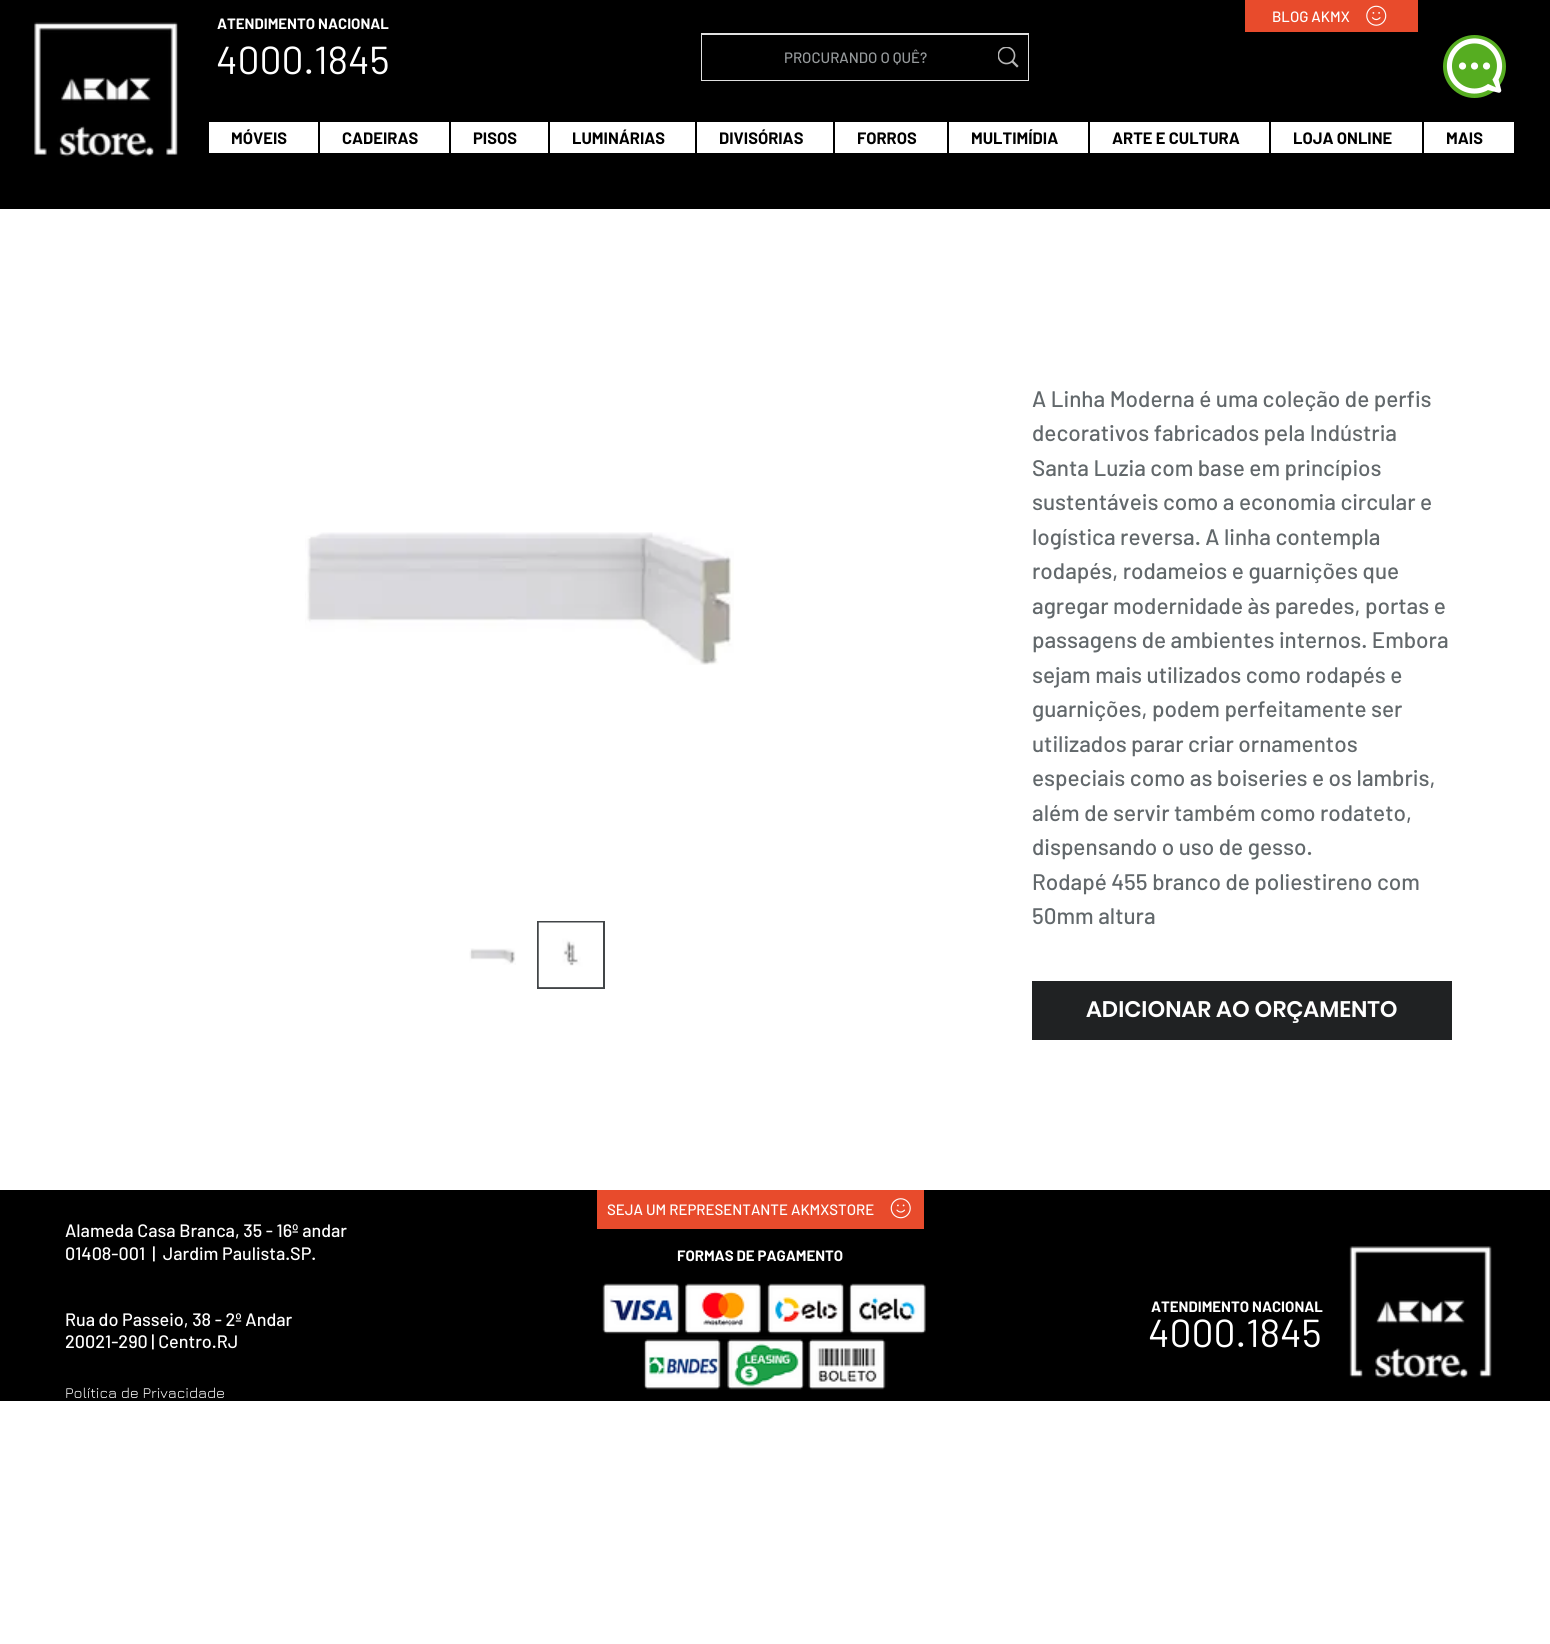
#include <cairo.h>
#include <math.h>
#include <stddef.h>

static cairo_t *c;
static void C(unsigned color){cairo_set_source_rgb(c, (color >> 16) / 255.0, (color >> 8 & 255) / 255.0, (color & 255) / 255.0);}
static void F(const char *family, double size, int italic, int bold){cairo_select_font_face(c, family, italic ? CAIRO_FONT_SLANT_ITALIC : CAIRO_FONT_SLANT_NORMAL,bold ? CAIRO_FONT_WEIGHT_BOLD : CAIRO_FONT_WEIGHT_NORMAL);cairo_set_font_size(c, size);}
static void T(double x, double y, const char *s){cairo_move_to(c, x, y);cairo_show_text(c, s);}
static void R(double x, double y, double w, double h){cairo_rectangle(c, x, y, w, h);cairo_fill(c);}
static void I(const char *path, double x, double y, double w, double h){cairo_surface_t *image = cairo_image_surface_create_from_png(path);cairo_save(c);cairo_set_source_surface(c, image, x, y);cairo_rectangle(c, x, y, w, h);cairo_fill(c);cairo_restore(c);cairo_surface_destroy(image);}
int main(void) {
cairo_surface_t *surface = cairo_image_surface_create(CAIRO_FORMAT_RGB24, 1550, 1644);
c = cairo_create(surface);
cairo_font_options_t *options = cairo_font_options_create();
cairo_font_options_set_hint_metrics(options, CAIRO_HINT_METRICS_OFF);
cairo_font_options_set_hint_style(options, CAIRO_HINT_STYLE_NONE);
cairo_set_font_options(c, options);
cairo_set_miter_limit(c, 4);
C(0xffffff);
cairo_paint(c);
C(0x000000);
R(0,0,1550,209);
I("1.png",34,22,144,135);
F("Barlow",15,0,1);
C(0xffffff);
T(217,29,"ATENDIMENTO NACIONAL");
C(0xe84b2c);
R(1245,0,173,32);
F("Barlow Medium",15,0,0);
C(0xffffff);
T(1272,22,"BLOG AKMX");
I("2.png",1366,5,21,21);
C(0x56ad21);
cairo_arc(c,1474.5,66.5,31.5,0,2 * M_PI);
cairo_fill(c);
I("3.png",1446,38,57,56);
F("Barlow",39,0,0);
C(0xffffff);
T(216,74,"4000.1845");
cairo_rectangle(c,702,34,326,46);
C(0xe0e0e0);
cairo_stroke(c);
C(0x000000);
R(702,35,326,45);
F("Barlow Medium",15,0,0);
C(0x969a9c);
T(784,63,"PROCURANDO O QUÊ?");
I("4.png",998,47,21,21);
C(0xffffff);
R(209,122,1305,31);
F("Barlow",16.5,0,1);
C(0x000000);
T(231,144,"MÓVEIS");
R(318,122,2,31);
T(342,144,"CADEIRAS");
R(449,122,2,31);
T(473,144,"PISOS");
R(548,122,2,31);
T(572,144,"LUMINÁRIAS");
R(695,122,2,31);
T(719,144,"DIVISÓRIAS");
R(833,122,2,31);
T(857,144,"FORROS");
R(947,122,2,31);
T(971,144,"MULTIMÍDIA");
R(1088,122,2,31);
T(1112,144,"ARTE E CULTURA");
R(1269,122,2,31);
T(1293,144,"LOJA ONLINE");
R(1422,122,2,31);
T(1446,144,"MAIS");
I("5.png",305,532,429,133);
I("6.png",469,948,47,17);
cairo_rectangle(c,538,922,66,66);
C(0x414547);
cairo_stroke(c);
I("7.png",538,922,65,66);
F("Barlow Medium",22.5,0,0);
C(0x62686b);
T(1032,407,"A Linha Moderna é uma coleção de perfis");
T(1032,441,"decorativos fabricados pela Indústria");
T(1032,476,"Santa Luzia com base em princípios");
T(1032,510,"sustentáveis como a economia circular e");
T(1032,545,"logística reversa. A linha contempla");
T(1032,579,"rodapés, rodameios e guarnições que");
T(1032,614,"agregar modernidade às paredes, portas e");
T(1032,648,"passagens de ambientes internos. Embora");
T(1032,683,"sejam mais utilizados como rodapés e");
T(1032,717,"guarnições, podem perfeitamente ser");
T(1032,752,"utilizados parar criar ornamentos");
T(1032,786,"especiais como as boiseries e os lambris,");
T(1032,821,"além de servir também como rodateto,");
T(1032,855,"dispensando o uso de gesso.");
T(1032,890,"Rodapé 455 branco de poliestireno com");
T(1032,924,"50mm altura");
C(0x202223);
R(1032,981,420,59);
F("Poppins SemiBold",22.5,0,0);
C(0xffffff);
T(1086,1017,"ADICIONAR AO ORÇAMENTO");
C(0x000000);
R(0,1190,1550,211);
C(0xe84b2c);
R(597,1190,327,39);
F("Barlow Medium",15,0,0);
C(0xffffff);
T(607,1215,"SEJA UM REPRESENTANTE AKMXSTORE");
I("8.png",890,1198,21,21);
F("Barlow Medium",18,0,0);
T(65,1237,"Alameda Casa Branca, 35 - 16º andar");
T(65,1260,"01408-001  |  Jardim Paulista.SP.");
F("Barlow",15,0,1);
T(677,1261,"FORMAS DE PAGAMENTO");
I("9.png",1349,1246,143,132);
F("Barlow Medium",18,0,0);
T(65,1326,"Rua do Passeio, 38 - 2º Andar");
T(65,1348,"20021-290 | Centro.RJ");
I("10.png",602,1283,324,107);
F("Barlow",15,0,1);
T(1151,1312,"ATENDIMENTO NACIONAL");
F("Barlow",39,0,0);
T(1148,1347,"4000.1845");
F("Jura",15,0,0);
T(65,1398,"Política de Privacidade");
cairo_surface_write_to_png(surface, "o.png");
cairo_font_options_destroy(options);
cairo_destroy(c);
cairo_surface_destroy(surface);
return 0;
}
